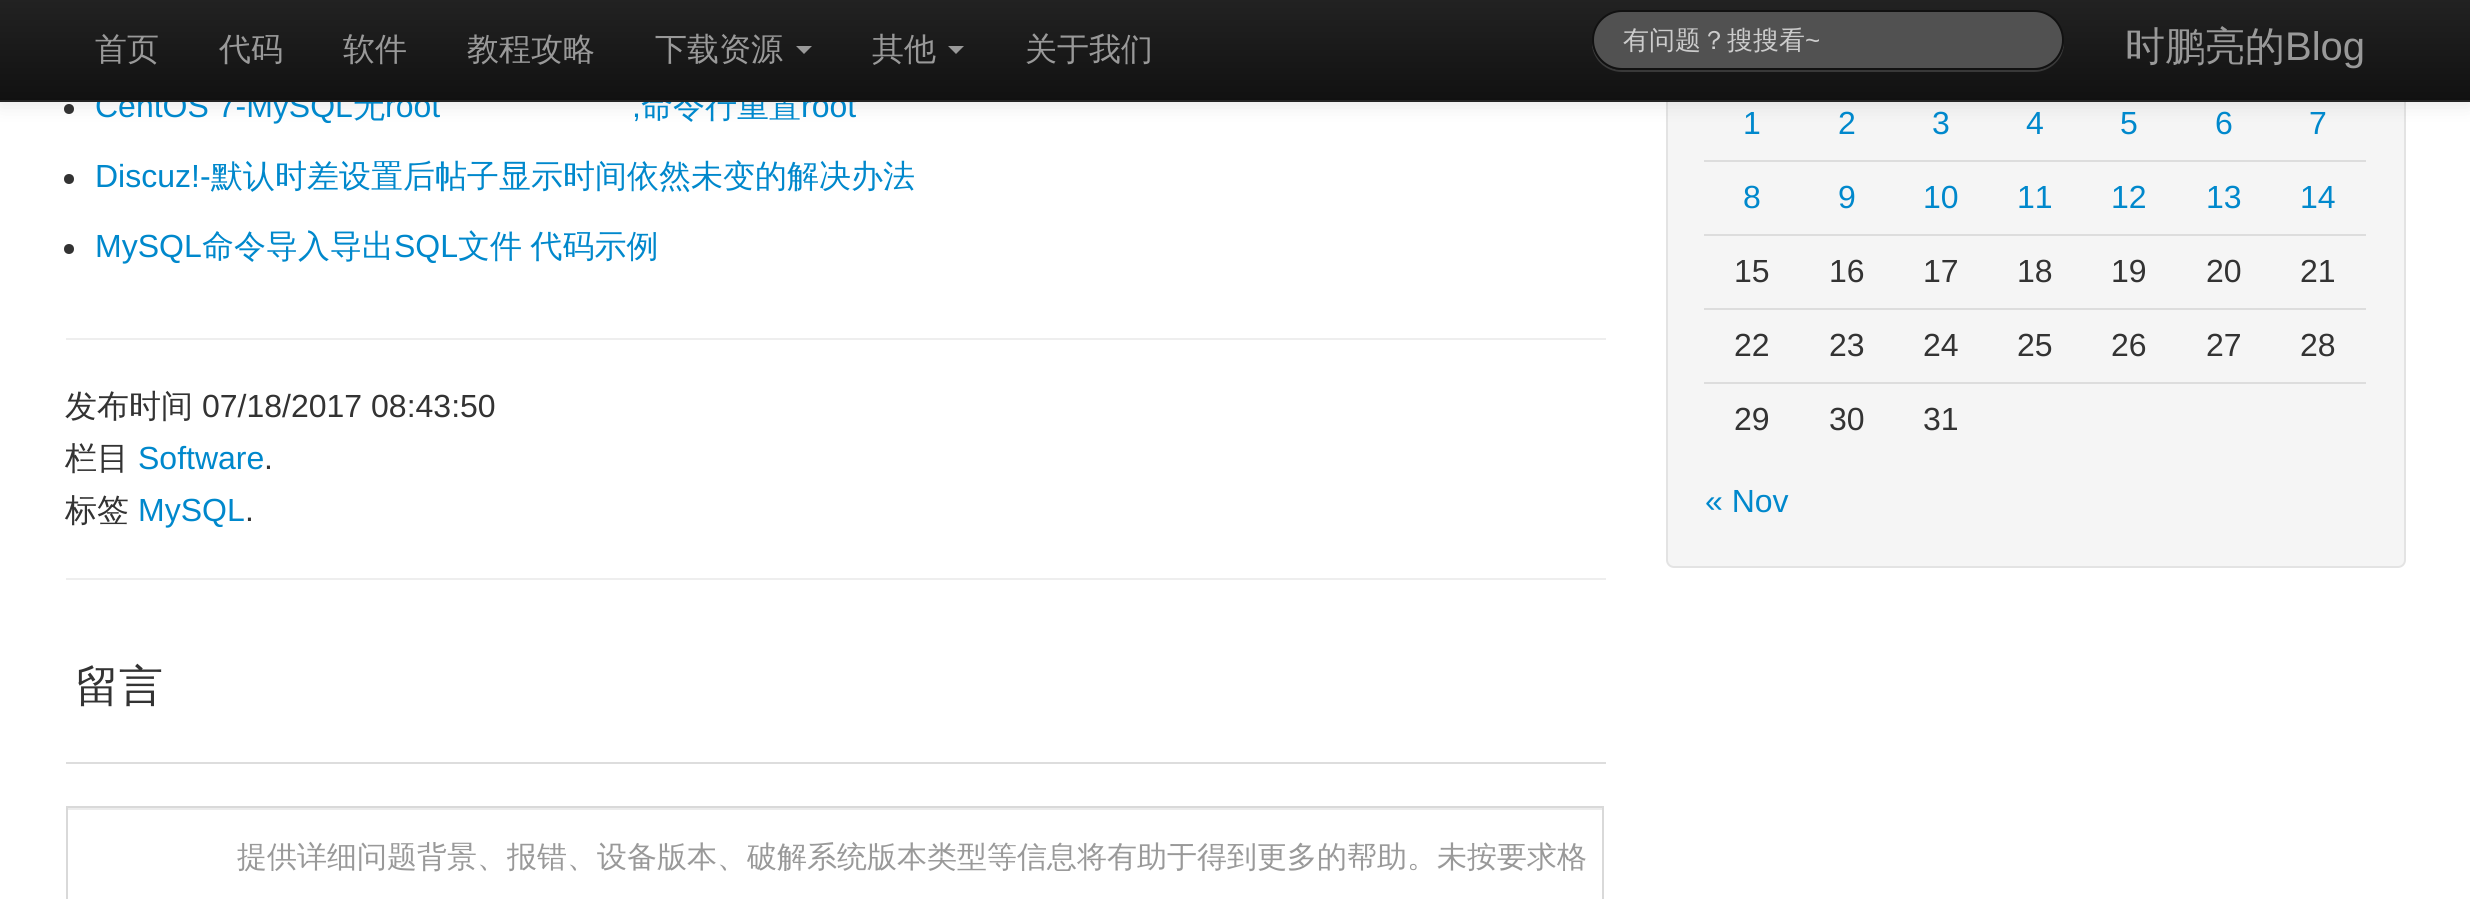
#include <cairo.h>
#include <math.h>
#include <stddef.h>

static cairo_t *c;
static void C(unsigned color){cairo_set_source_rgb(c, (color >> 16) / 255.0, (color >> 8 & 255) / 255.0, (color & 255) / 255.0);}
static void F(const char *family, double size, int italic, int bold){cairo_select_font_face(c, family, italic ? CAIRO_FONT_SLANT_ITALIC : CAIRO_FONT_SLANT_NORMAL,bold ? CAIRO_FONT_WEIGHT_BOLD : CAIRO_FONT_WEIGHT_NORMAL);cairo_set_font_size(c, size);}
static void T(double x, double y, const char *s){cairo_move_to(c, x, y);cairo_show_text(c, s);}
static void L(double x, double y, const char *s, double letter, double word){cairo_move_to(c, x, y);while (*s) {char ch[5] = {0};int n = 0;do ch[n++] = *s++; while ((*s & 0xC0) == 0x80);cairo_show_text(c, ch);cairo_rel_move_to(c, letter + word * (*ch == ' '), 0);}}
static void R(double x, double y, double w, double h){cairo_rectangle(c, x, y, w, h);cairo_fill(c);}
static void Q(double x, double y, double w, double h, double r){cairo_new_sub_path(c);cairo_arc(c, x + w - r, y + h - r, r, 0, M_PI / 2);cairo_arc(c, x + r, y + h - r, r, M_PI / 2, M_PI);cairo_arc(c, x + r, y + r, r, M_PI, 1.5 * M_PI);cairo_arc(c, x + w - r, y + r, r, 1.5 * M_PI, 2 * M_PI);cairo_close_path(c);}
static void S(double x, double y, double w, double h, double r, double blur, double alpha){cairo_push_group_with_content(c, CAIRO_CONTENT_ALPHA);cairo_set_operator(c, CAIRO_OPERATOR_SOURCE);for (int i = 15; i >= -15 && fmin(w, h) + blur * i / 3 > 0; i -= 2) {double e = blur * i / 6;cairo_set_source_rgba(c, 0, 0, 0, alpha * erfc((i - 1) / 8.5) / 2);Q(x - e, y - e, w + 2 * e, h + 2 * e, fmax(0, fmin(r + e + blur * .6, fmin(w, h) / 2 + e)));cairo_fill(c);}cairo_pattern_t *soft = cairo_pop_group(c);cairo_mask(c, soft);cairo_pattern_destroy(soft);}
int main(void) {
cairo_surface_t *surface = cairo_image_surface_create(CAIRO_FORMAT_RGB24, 2470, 899);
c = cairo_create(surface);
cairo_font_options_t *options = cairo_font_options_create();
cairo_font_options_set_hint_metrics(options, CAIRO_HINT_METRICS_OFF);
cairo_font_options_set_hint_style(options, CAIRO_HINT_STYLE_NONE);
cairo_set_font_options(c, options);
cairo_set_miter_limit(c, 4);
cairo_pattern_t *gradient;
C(0xffffff);
cairo_paint(c);
C(0x333333);
cairo_arc(c,69,109,5,0,2 * M_PI);
cairo_fill(c);
C(0xf5f5f5);
Q(1667,-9,738,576,7);
cairo_fill_preserve(c);
C(0xe3e3e3);
cairo_stroke(c);
C(0x000000);
S(0,2,2470,102,0,10,.1);
F("Liberation Sans",32,0,0);
C(0x0088cc);
T(95,117,"CentOS 7-MySQL");
F("WenQuanYi Zen Hei Medium",32,0,0);
T(353,117,"无");
F("Liberation Sans",32,0,0);
T(385,117,"root");
F("WenQuanYi Zen Hei Medium",32,0,0);
T(641,117,"命令行重置");
F("Liberation Sans",32,0,0);
T(801,117,"root");
gradient = cairo_pattern_create_linear(1235,0,1235,100);
cairo_pattern_add_color_stop_rgba(gradient,0,0.133,0.133,0.133,1);
cairo_pattern_add_color_stop_rgba(gradient,1,0.067,0.067,0.067,1);
cairo_set_source(c,gradient);
cairo_pattern_destroy(gradient);
R(0,0,2470,100);
C(0x252525);
R(0,100,2470,2);
F("WenQuanYi Zen Hei Medium",32,0,0);
C(0x999999);
T(95,60,"首页");
T(219,60,"代码");
T(343,60,"软件");
T(467,60,"教程攻略");
T(655,60,"下载资源");
cairo_new_path(c);
cairo_move_to(c,796,46);
cairo_line_to(c,812,46);
cairo_line_to(c,804,54);
cairo_close_path(c);
cairo_fill(c);
T(872,60,"其他");
cairo_new_path(c);
cairo_move_to(c,948,46);
cairo_line_to(c,964,46);
cairo_line_to(c,956,54);
cairo_close_path(c);
cairo_fill(c);
T(1025,60,"关于我们");
cairo_set_source_rgba(c,1,1,1,0.15);
cairo_new_path(c);
cairo_move_to(c,1592,41);
cairo_curve_to(c,1591,58,1605,72,1622,72);
cairo_line_to(c,2034,72);
cairo_curve_to(c,2051,72,2065,58,2064,41);
cairo_curve_to(c,2063,57,2050,70,2034,70);
cairo_line_to(c,1622,70);
cairo_curve_to(c,1606,70,1593,57,1592,41);
cairo_close_path(c);
cairo_fill(c);
C(0x515151);
Q(1593,11,470,58,29);
cairo_fill_preserve(c);
C(0x111111);
cairo_stroke(c);
F("WenQuanYi Zen Hei Medium",26,0,0);
C(0xcccccc);
T(1623,49,"有问题？搜搜看");
F("Liberation Sans",26,0,0);
T(1805,49,"~");
F("WenQuanYi Zen Hei Medium",40,0,0);
C(0x999999);
T(2125,60,"时鹏亮的");
F("Liberation Sans",40,0,0);
T(2285,60,"Blog");
C(0xeeeeee);
R(66,578,1540,2);
F("Liberation Sans",32,0,0);
C(0x0088cc);
T(632,117,",");
C(0x333333);
cairo_new_path(c);
cairo_arc(c,69,179,5,0,2 * M_PI);
cairo_fill(c);
C(0x0088cc);
T(95,187,"Discuz!-");
F("WenQuanYi Zen Hei Medium",32,0,0);
T(211,187,"默认时差设置后帖子显示时间依然未变的解决办法");
C(0x333333);
cairo_new_path(c);
cairo_arc(c,69,249,5,0,2 * M_PI);
cairo_fill(c);
F("Liberation Sans",32,0,0);
C(0x0088cc);
T(95,257,"MySQL");
F("WenQuanYi Zen Hei Medium",32,0,0);
T(202,257,"命令导入导出");
F("Liberation Sans",32,0,0);
T(394,257,"SQL");
F("WenQuanYi Zen Hei Medium",32,0,0);
L(458,257,"文件 代码示例",0,-1);
C(0xeeeeee);
R(66,338,1540,2);
C(0x333333);
T(65,417,"发布时间");
F("Liberation Sans",32,0,0);
T(202,417,"07/18/2017 08:43:50");
F("WenQuanYi Zen Hei Medium",32,0,0);
T(65,469,"栏目");
F("Liberation Sans",32,0,0);
C(0x0088cc);
T(138,469,"Software");
C(0x333333);
T(264,469,".");
F("WenQuanYi Zen Hei Medium",32,0,0);
T(65,521,"标签");
F("Liberation Sans",32,0,0);
C(0x0088cc);
T(138,521,"MySQL");
C(0x333333);
T(245,521,".");
F("WenQuanYi Zen Hei Medium",44,0,0);
T(75,701,"留言");
C(0xdddddd);
R(66,762,1540,2);
cairo_rectangle(c,67,807,1536,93);
C(0xd9d9d9);
cairo_stroke(c);
C(0xececec);
R(68,808,1534,2);
F("WenQuanYi Zen Hei Medium",30,0,0);
C(0x999999);
T(237,867,"提供详细问题背景、报错、设备版本、破解系统版本类型等信息将有助于得到更多的帮助。未按要求格");
F("Liberation Sans",32,0,0);
C(0x0088cc);
T(1743,134,"1");
T(1838,134,"2");
T(1932,134,"3");
T(2026,134,"4");
T(2120,134,"5");
T(2215,134,"6");
T(2309,134,"7");
T(1743,208,"8");
T(1838,208,"9");
T(1923,208,"10");
T(2017,208,"11");
T(2111,208,"12");
T(2206,208,"13");
C(0xdddddd);
R(1704,160,662,2);
C(0x0088cc);
T(2300,208,"14");
C(0x333333);
T(1734,282,"15");
T(1829,282,"16");
T(1923,282,"17");
T(2017,282,"18");
T(2111,282,"19");
T(2206,282,"20");
C(0xdddddd);
R(1704,234,662,2);
C(0x333333);
T(2300,282,"21");
T(1734,356,"22");
T(1829,356,"23");
T(1923,356,"24");
T(2017,356,"25");
T(2111,356,"26");
T(2206,356,"27");
C(0xdddddd);
R(1704,308,662,2);
C(0x333333);
T(2300,356,"28");
C(0xdddddd);
R(1704,382,662,2);
C(0x333333);
T(1734,430,"29");
T(1829,430,"30");
T(1923,430,"31");
C(0x0088cc);
T(1705,512,"« Nov");
cairo_surface_write_to_png(surface, "o.png");
cairo_font_options_destroy(options);
cairo_destroy(c);
cairo_surface_destroy(surface);
return 0;
}
